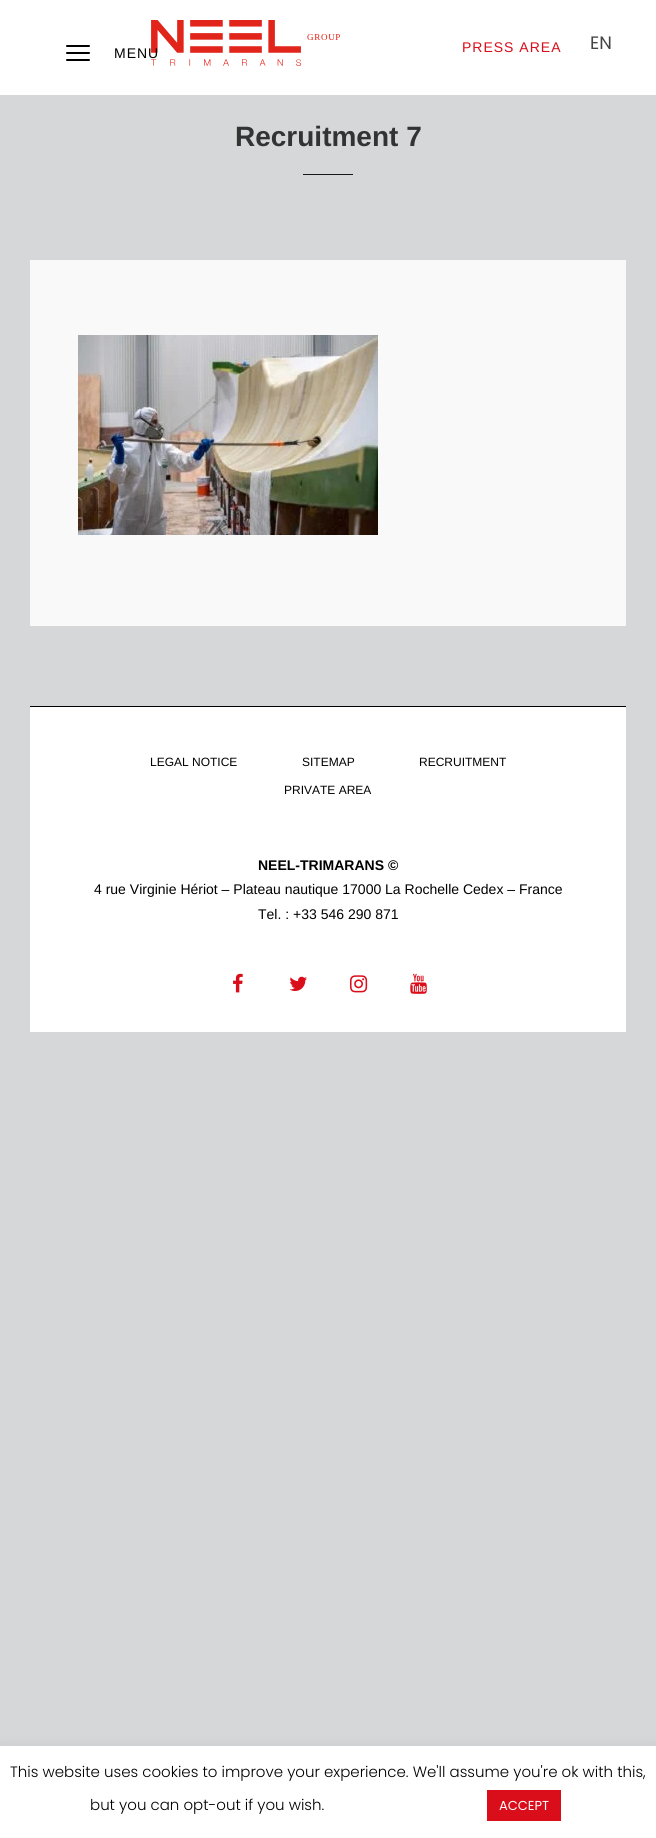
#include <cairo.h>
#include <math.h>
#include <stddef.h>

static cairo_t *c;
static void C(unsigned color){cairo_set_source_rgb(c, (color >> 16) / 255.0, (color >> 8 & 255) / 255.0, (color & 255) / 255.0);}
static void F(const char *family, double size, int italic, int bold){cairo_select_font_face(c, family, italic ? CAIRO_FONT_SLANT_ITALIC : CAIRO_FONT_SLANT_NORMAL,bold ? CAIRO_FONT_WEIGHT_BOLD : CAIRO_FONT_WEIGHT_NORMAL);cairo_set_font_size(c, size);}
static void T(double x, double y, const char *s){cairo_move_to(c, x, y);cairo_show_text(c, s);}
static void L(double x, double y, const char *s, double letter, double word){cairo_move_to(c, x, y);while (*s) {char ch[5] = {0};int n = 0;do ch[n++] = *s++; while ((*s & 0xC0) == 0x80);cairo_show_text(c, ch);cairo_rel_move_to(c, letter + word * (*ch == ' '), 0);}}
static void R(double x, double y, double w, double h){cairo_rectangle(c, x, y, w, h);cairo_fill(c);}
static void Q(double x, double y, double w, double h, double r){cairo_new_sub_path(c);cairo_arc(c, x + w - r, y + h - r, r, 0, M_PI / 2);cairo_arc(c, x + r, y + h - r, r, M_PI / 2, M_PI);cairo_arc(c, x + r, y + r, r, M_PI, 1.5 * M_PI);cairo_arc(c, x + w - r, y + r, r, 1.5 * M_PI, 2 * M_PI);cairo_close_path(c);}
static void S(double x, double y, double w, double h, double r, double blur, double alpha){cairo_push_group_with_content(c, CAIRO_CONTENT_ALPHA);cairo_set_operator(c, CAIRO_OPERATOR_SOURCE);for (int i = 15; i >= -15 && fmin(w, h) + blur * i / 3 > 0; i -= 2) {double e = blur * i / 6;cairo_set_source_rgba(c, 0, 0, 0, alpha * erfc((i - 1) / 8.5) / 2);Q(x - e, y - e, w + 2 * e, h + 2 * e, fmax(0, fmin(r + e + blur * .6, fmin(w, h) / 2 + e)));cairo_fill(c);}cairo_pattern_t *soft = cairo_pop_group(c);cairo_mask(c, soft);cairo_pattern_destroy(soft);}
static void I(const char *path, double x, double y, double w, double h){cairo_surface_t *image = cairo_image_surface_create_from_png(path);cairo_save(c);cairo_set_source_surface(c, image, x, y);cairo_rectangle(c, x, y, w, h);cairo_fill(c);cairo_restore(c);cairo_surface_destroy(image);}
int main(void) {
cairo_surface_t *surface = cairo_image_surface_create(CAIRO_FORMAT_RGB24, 656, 1838);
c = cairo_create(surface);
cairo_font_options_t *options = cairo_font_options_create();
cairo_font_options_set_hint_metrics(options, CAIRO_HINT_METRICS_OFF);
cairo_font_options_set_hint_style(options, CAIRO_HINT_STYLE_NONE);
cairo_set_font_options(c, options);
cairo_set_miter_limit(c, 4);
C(0xd6d7d9);
cairo_paint(c);
C(0xffffff);
R(0,0,656,95);
C(0x000000);
Q(66,45,24,2,1);
cairo_fill(c);
Q(66,52,24,2,1);
cairo_fill(c);
Q(66,59,24,2,1);
cairo_fill(c);
I("1.png",151,20,189,46);
F("Liberation Sans",14,0,0);
L(114,58,"MENU",1,0);
C(0xda0d1a);
L(462,52,"PRESS AREA",1,0);
F("Poppins",18,0,0);
C(0x444444);
T(590,49,"EN");
F("Liberation Sans",28,0,1);
C(0x333333);
T(235,146,"Recruitment 7");
C(0x181818);
R(303,174,50,1);
C(0xf9f9f9);
R(30,260,596,366);
I("2.png",78,335,300,200);
C(0xffffff);
R(30,707,596,325);
C(0x000000);
R(30,706,596,1);
F("Liberation Sans",12,0,0);
T(150,766,"LEGAL NOTICE");
T(302,766,"SITEMAP");
T(419,766,"RECRUITMENT");
T(284,794,"PRIVATE AREA");
F("Liberation Sans",14,0,1);
T(258,870,"NEEL-TRIMARANS ©");
F("Liberation Sans",14,0,0);
T(94,894,"4 rue Virginie Hériot – Plateau nautique 17000 La Rochelle Cedex – France");
T(258,919,"Tel. : +33 546 290 871");
I("3.png",233,973,10,20);
I("4.png",289,976,18,15);
I("5.png",350,975,18,18);
I("6.png",410,973,17,21);
C(0xacabab);
S(0,1745,656,92,0,5,.3);
C(0xffffff);
R(0,1746,656,92);
F("Poppins Light",15,0,0);
C(0x000000);
T(10,1777,"This website uses cookies to improve your experience. We'll assume you're ok with this,");
T(90,1810,"but you can opt-out if you wish.");
C(0xda0d1a);
R(487,1790,74,31);
F("Poppins",13,0,0);
C(0xffffff);
T(499,1810,"ACCEPT");
cairo_surface_write_to_png(surface, "o.png");
cairo_font_options_destroy(options);
cairo_destroy(c);
cairo_surface_destroy(surface);
return 0;
}
